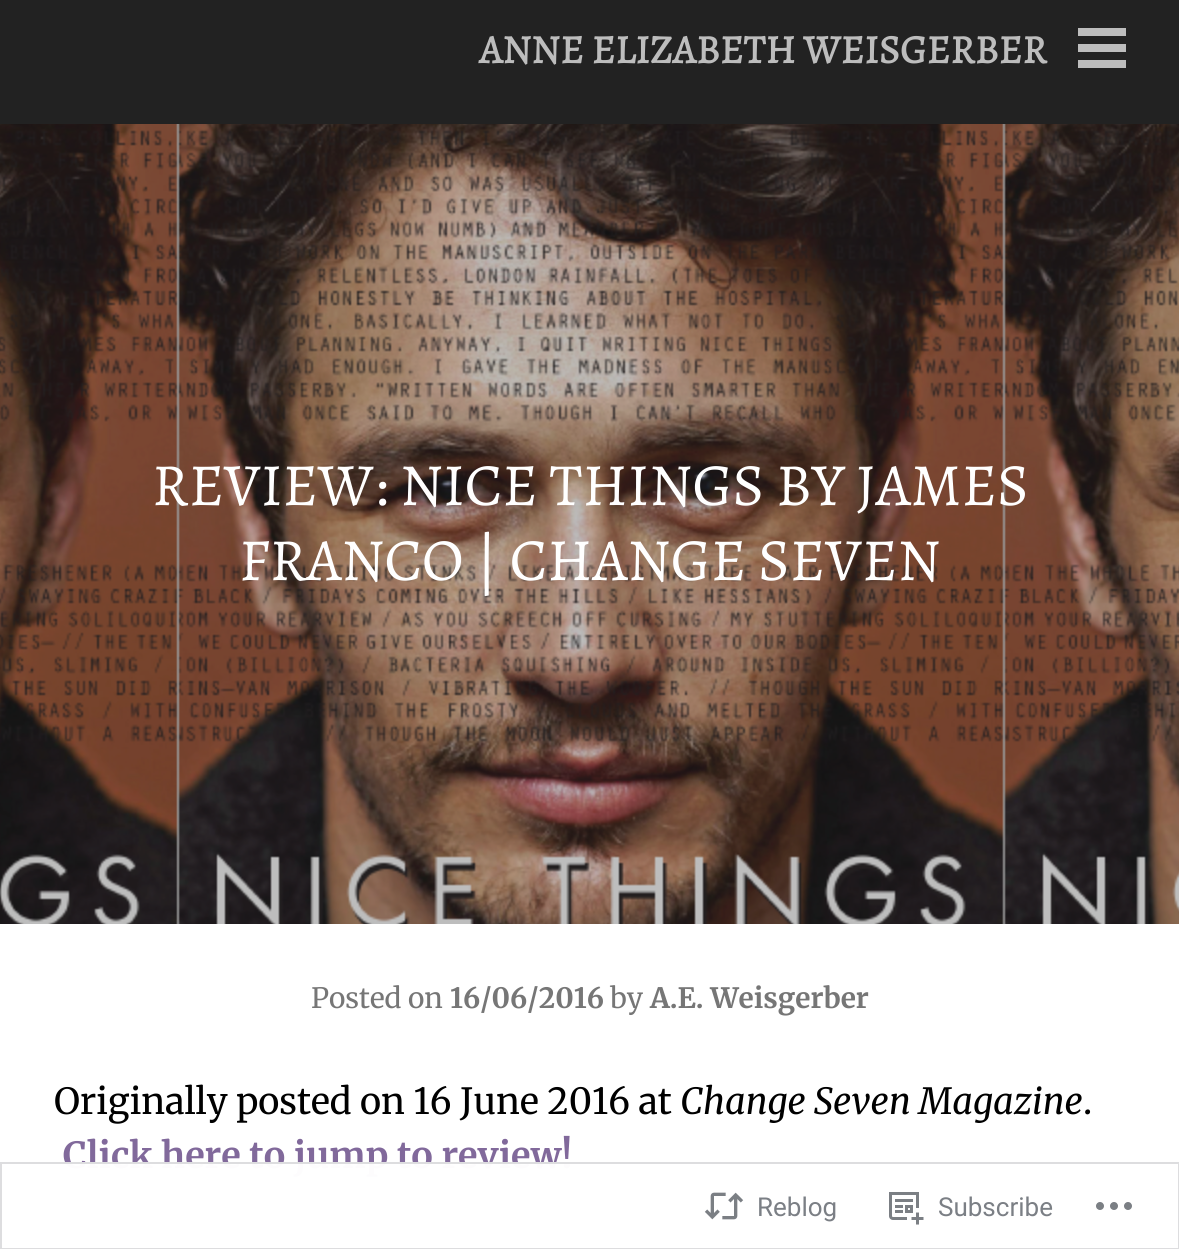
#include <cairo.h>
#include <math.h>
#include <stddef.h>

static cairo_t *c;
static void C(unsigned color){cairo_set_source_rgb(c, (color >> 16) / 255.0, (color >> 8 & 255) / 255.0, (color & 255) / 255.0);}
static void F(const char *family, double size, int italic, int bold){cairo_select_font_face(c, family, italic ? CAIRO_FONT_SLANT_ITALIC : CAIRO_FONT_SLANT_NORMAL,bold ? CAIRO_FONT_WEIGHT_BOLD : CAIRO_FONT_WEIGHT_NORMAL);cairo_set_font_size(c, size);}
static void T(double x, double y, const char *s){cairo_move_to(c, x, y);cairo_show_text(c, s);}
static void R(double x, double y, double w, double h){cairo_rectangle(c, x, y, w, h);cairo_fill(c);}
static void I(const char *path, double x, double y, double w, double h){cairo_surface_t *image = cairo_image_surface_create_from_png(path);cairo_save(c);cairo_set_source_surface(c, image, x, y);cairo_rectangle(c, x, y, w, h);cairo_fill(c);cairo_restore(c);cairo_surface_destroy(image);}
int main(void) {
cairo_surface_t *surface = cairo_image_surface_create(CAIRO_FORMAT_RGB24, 1179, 1249);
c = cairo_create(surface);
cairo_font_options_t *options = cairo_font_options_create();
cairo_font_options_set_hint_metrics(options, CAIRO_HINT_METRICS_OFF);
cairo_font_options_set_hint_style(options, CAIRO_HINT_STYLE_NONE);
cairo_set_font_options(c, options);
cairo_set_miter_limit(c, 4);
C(0xffffff);
cairo_paint(c);
C(0x222222);
R(0,0,1179,124);
F("Alegreya",40,0,1);
C(0xbdbdbd);
T(479,63,"ANNE ELIZABETH WEISGERBER");
R(1078,44,48,8);
R(1078,28,48,8);
R(1078,60,48,8);
I("1.png",0,124,1179,800);
F("Alegreya",60,0,0);
C(0xffffff);
T(152,505,"REVIEW: NICE THINGS BY JAMES");
T(239,580,"FRANCO | CHANGE SEVEN");
F("Merriweather",28,0,0);
C(0x767676);
T(311,1008,"Posted on");
F("Merriweather",28,0,1);
T(450,1008,"16/06/2016");
F("Merriweather",28,0,0);
T(610,1008,"by");
F("Merriweather",28,0,1);
T(650,1008,"A.E. Weisgerber");
F("Merriweather",36,0,0);
C(0x000000);
T(54,1114,"Originally posted on 16 June 2016 at");
F("Merriweather",36,1,0);
T(680,1114,"Change Seven Magazine");
F("Merriweather",36,0,0);
T(1083,1114,".");
F("Merriweather",36,0,1);
C(0x81699b);
T(63,1168,"Click here to jump to review!");
cairo_set_source_rgba(c,1,1,1,0.98);
R(64,1162,506,15);
cairo_rectangle(c,1,1163,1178,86);
cairo_set_source_rgba(c,0.863,0.863,0.871,0.98);
cairo_stroke(c);
I("2.png",704,1192,40,28);
F("Roboto",26,0,0);
C(0x7b7f85);
T(757,1216,"Reblog");
I("3.png",889,1192,35,33);
T(938,1216,"Subscribe");
I("4.png",1096,1202,36,8);
cairo_surface_write_to_png(surface, "o.png");
cairo_font_options_destroy(options);
cairo_destroy(c);
cairo_surface_destroy(surface);
return 0;
}
